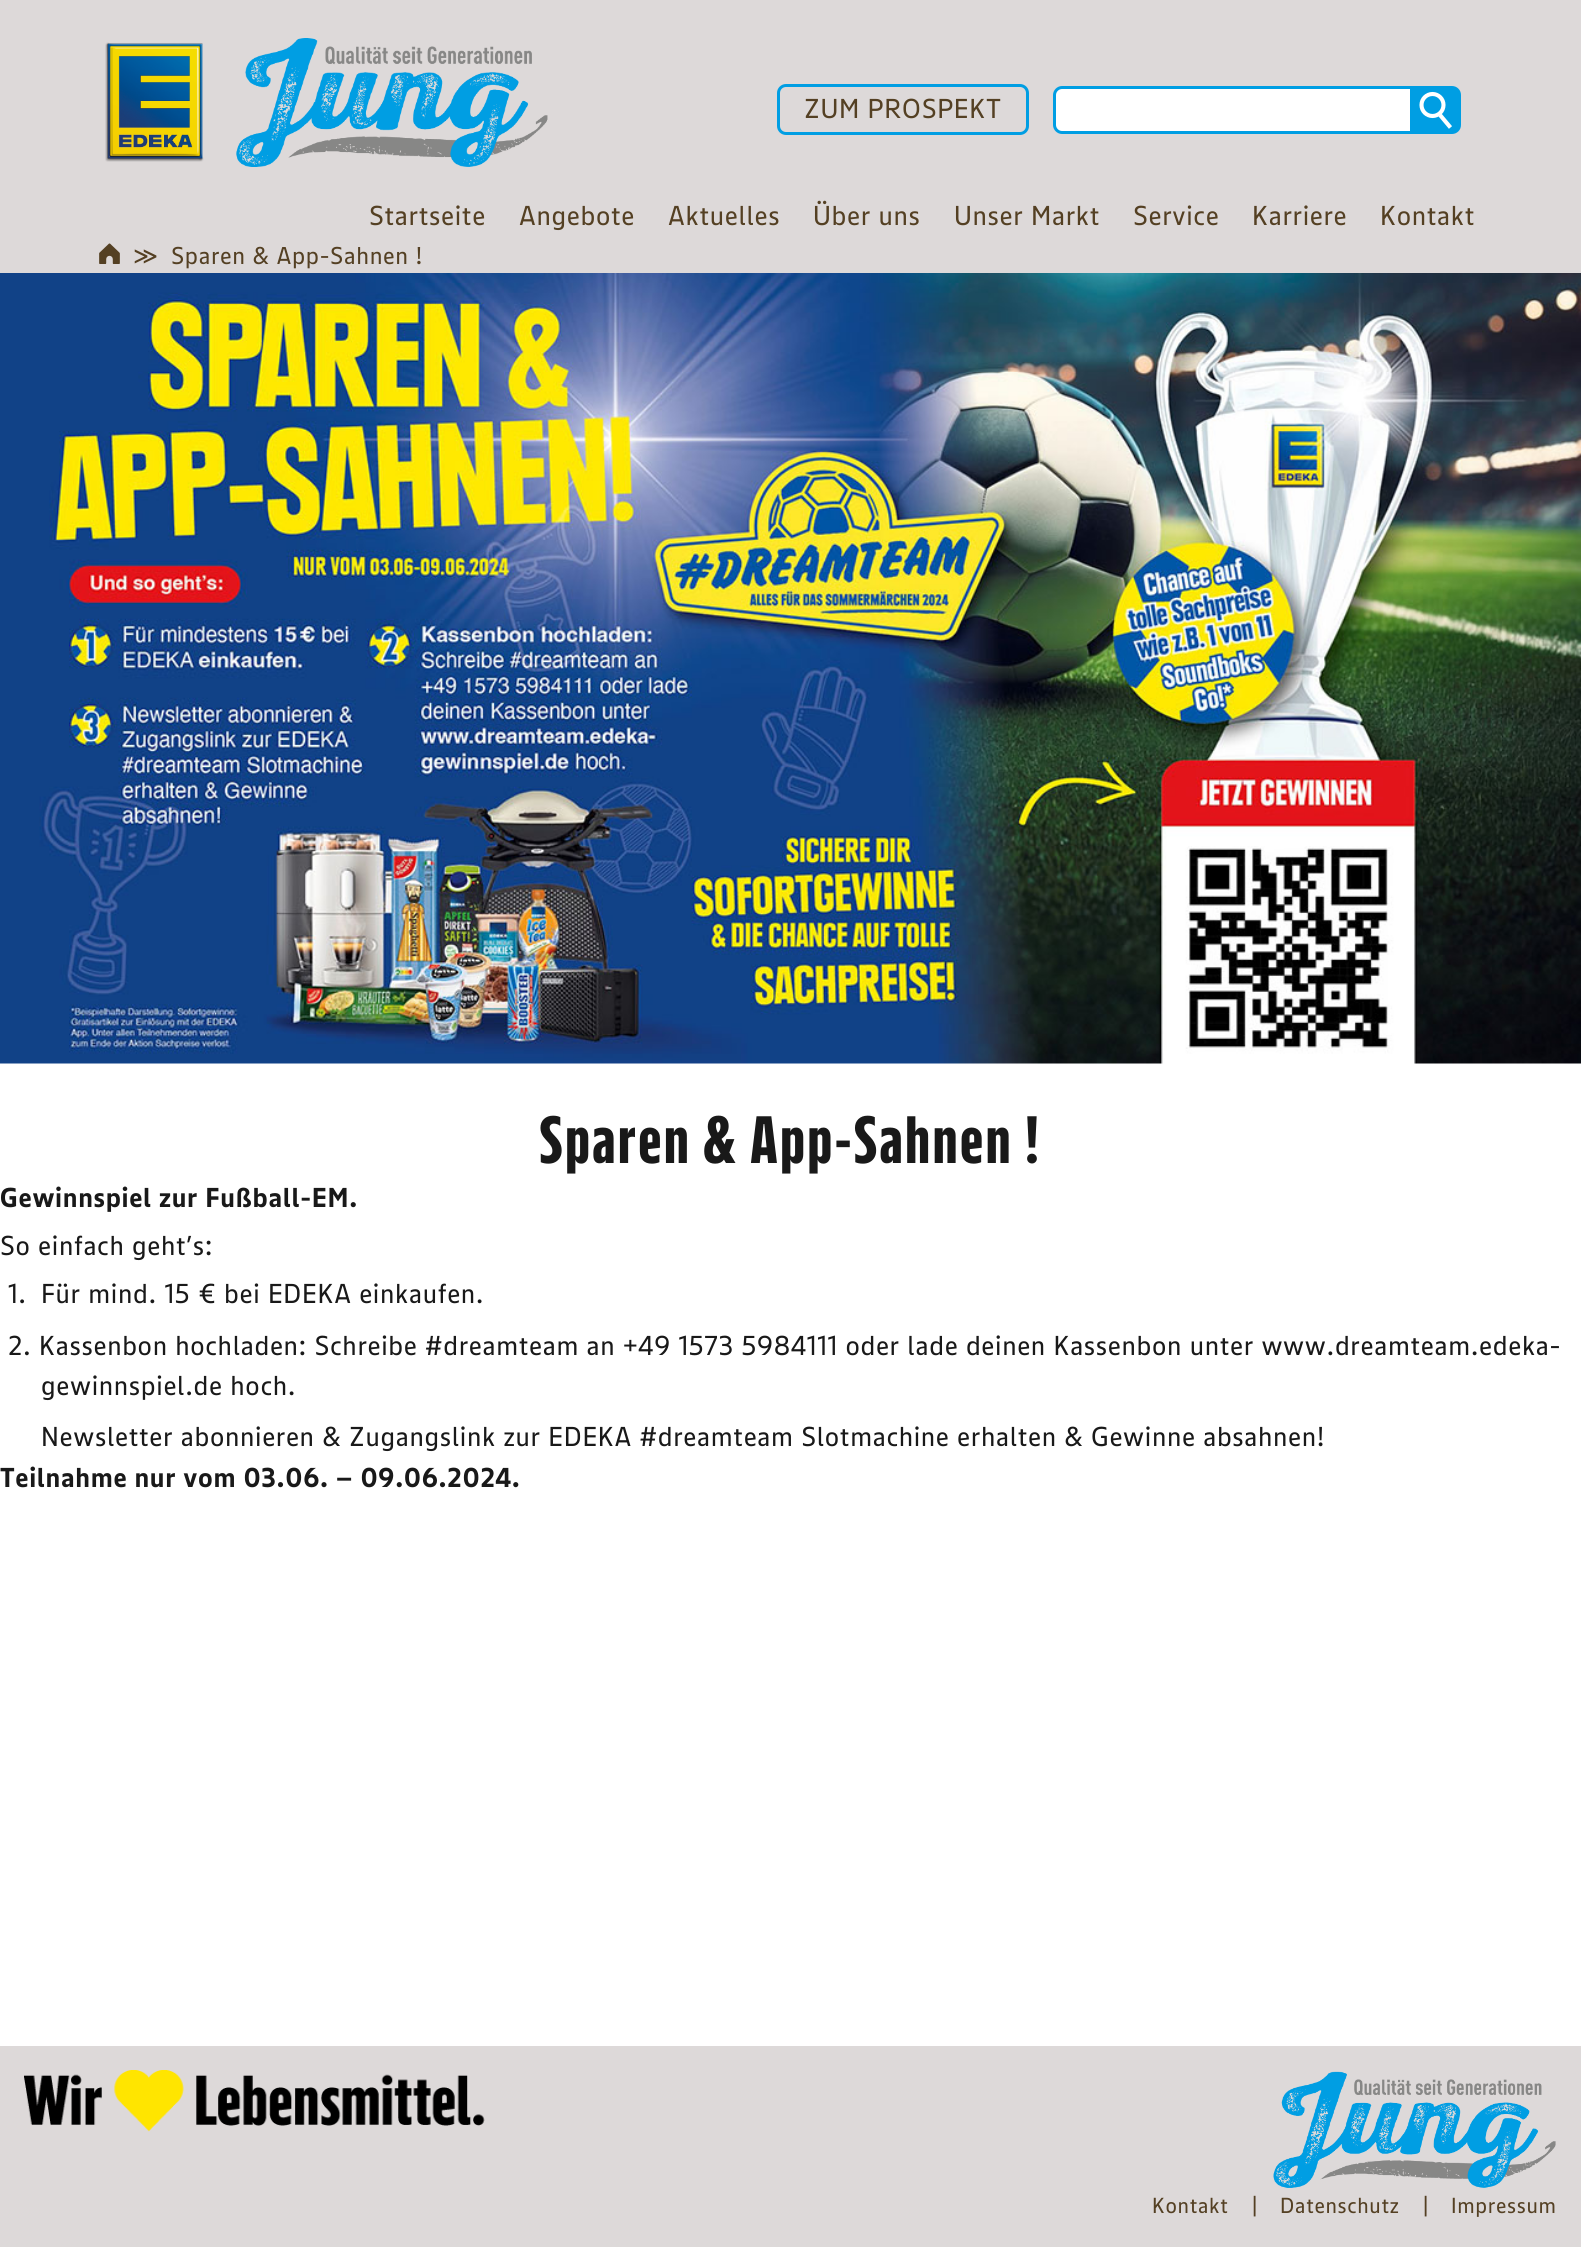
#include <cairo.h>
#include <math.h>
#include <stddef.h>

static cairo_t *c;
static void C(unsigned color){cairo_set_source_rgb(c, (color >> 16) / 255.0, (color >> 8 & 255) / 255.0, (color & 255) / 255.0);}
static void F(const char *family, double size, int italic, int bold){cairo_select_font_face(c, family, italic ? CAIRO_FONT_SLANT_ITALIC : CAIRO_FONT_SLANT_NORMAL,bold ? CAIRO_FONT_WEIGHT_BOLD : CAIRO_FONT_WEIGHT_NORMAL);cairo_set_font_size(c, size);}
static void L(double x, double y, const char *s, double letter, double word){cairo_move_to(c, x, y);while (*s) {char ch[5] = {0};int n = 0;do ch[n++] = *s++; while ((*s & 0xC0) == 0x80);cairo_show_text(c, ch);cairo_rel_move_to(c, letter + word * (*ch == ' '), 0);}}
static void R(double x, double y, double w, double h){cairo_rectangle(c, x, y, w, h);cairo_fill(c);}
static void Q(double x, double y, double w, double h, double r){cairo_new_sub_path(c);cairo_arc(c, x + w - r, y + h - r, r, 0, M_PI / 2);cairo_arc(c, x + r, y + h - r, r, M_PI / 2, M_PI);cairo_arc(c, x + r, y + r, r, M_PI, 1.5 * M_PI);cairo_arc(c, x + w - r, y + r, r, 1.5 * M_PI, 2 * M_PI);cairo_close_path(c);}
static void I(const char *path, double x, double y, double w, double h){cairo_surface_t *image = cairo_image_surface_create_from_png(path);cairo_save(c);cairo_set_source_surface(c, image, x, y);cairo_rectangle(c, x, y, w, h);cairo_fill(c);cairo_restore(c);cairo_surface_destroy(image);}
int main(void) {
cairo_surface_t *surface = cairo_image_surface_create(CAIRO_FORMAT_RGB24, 1581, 2247);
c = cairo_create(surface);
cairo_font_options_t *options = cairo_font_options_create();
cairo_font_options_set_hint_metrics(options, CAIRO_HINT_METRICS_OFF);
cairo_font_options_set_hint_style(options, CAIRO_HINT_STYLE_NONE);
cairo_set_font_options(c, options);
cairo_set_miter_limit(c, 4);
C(0xffffff);
cairo_paint(c);
C(0xddd9d9);
R(0,0,1581,273);
I("1.png",105,42,99,120);
I("2.png",236,38,312,129);
Q(778.5,85.5,249,48,7.5);
C(0x009ee3);
cairo_set_line_width(c,3);
cairo_stroke(c);
F("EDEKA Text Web",27,0,0);
C(0x544023);
L(804,118,"ZUM PROSPEKT",.68,0);
C(0xffffff);
cairo_new_path(c);
cairo_move_to(c,1062,87.5);
cairo_line_to(c,1411.5,87.5);
cairo_line_to(c,1411.5,132.5);
cairo_line_to(c,1062,132.5);
cairo_curve_to(c,1058,132.5,1054.5,129,1054.5,125);
cairo_line_to(c,1054.5,95);
cairo_curve_to(c,1054.5,91,1058,87.5,1062,87.5);
cairo_close_path(c);
cairo_fill_preserve(c);
C(0x009ee3);
cairo_stroke(c);
cairo_new_path(c);
cairo_move_to(c,1413,86);
cairo_line_to(c,1452,86);
cairo_curve_to(c,1457,86,1461,90,1461,95);
cairo_line_to(c,1461,125);
cairo_curve_to(c,1461,130,1457,134,1452,134);
cairo_line_to(c,1413,134);
cairo_close_path(c);
cairo_fill(c);
cairo_arc(c,1432.5,105,11,0,2 * M_PI);
C(0xffffff);
cairo_set_line_width(c,4.1);
cairo_stroke(c);
cairo_new_path(c);
cairo_move_to(c,1440,115);
cairo_line_to(c,1450.5,127.5);
cairo_stroke(c);
C(0x544023);
L(369,225,"Startseite",.68,0);
L(519,225,"Angebote",.68,0);
L(668,225,"Aktuelles",.68,0);
L(813,225,"Über uns",.68,0);
L(954,225,"Unser Markt",.68,0);
L(1133,225,"Service",.68,0);
L(1252,225,"Karriere",.68,0);
L(1380,225,"Kontakt",.68,0);
I("3.png",99,243,21,21);
F("DejaVu Sans",24,0,0);
L(133,264,"≫",.68,0);
F("EDEKA Text Web",24,0,0);
L(171,264,"Sparen & App-Sahnen !",.68,0);
I("4.png",0,273,1581,791);
F("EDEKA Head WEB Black",66,0,0);
C(0x191919);
L(539,1163,"Sparen & App-Sahnen !",1.65,0);
F("EDEKA Text Web",27,0,1);
L(0,1207,"Gewinnspiel zur Fußball-EM.",.68,0);
F("EDEKA Text Web",27,0,0);
L(0,1255,"So einfach geht’s:",.68,0);
L(8,1303,"1.",.68,0);
L(41,1303,"Für mind. 15 € bei EDEKA einkaufen.",.68,0);
L(8,1355,"2. Kassenbon hochladen: Schreibe #dreamteam an +49 1573 5984111 oder lade deinen Kassenbon unter www.dreamteam.edeka-",.68,0);
L(41,1395,"gewinnspiel.de hoch.",.68,0);
L(41,1446,"Newsletter abonnieren & Zugangslink zur EDEKA #dreamteam Slotmachine erhalten & Gewinne absahnen!",.68,0);
F("EDEKA Text Web",27,0,1);
L(0,1487,"Teilnahme nur vom 03.06. – 09.06.2024.",.68,0);
C(0xddd9d9);
R(0,2046,1581,201);
I("5.png",24,2070,461,62);
I("6.png",1273,2071,283,117);
F("EDEKA Text Web",21.5,0,0);
C(0x544023);
L(1152,2213,"Kontakt",.68,0);
L(1252,2213,"|",.68,0);
L(1280,2213,"Datenschutz",.68,0);
L(1423,2213,"|",.68,0);
L(1451,2213,"Impressum",.68,0);
cairo_surface_write_to_png(surface, "o.png");
cairo_font_options_destroy(options);
cairo_destroy(c);
cairo_surface_destroy(surface);
return 0;
}
